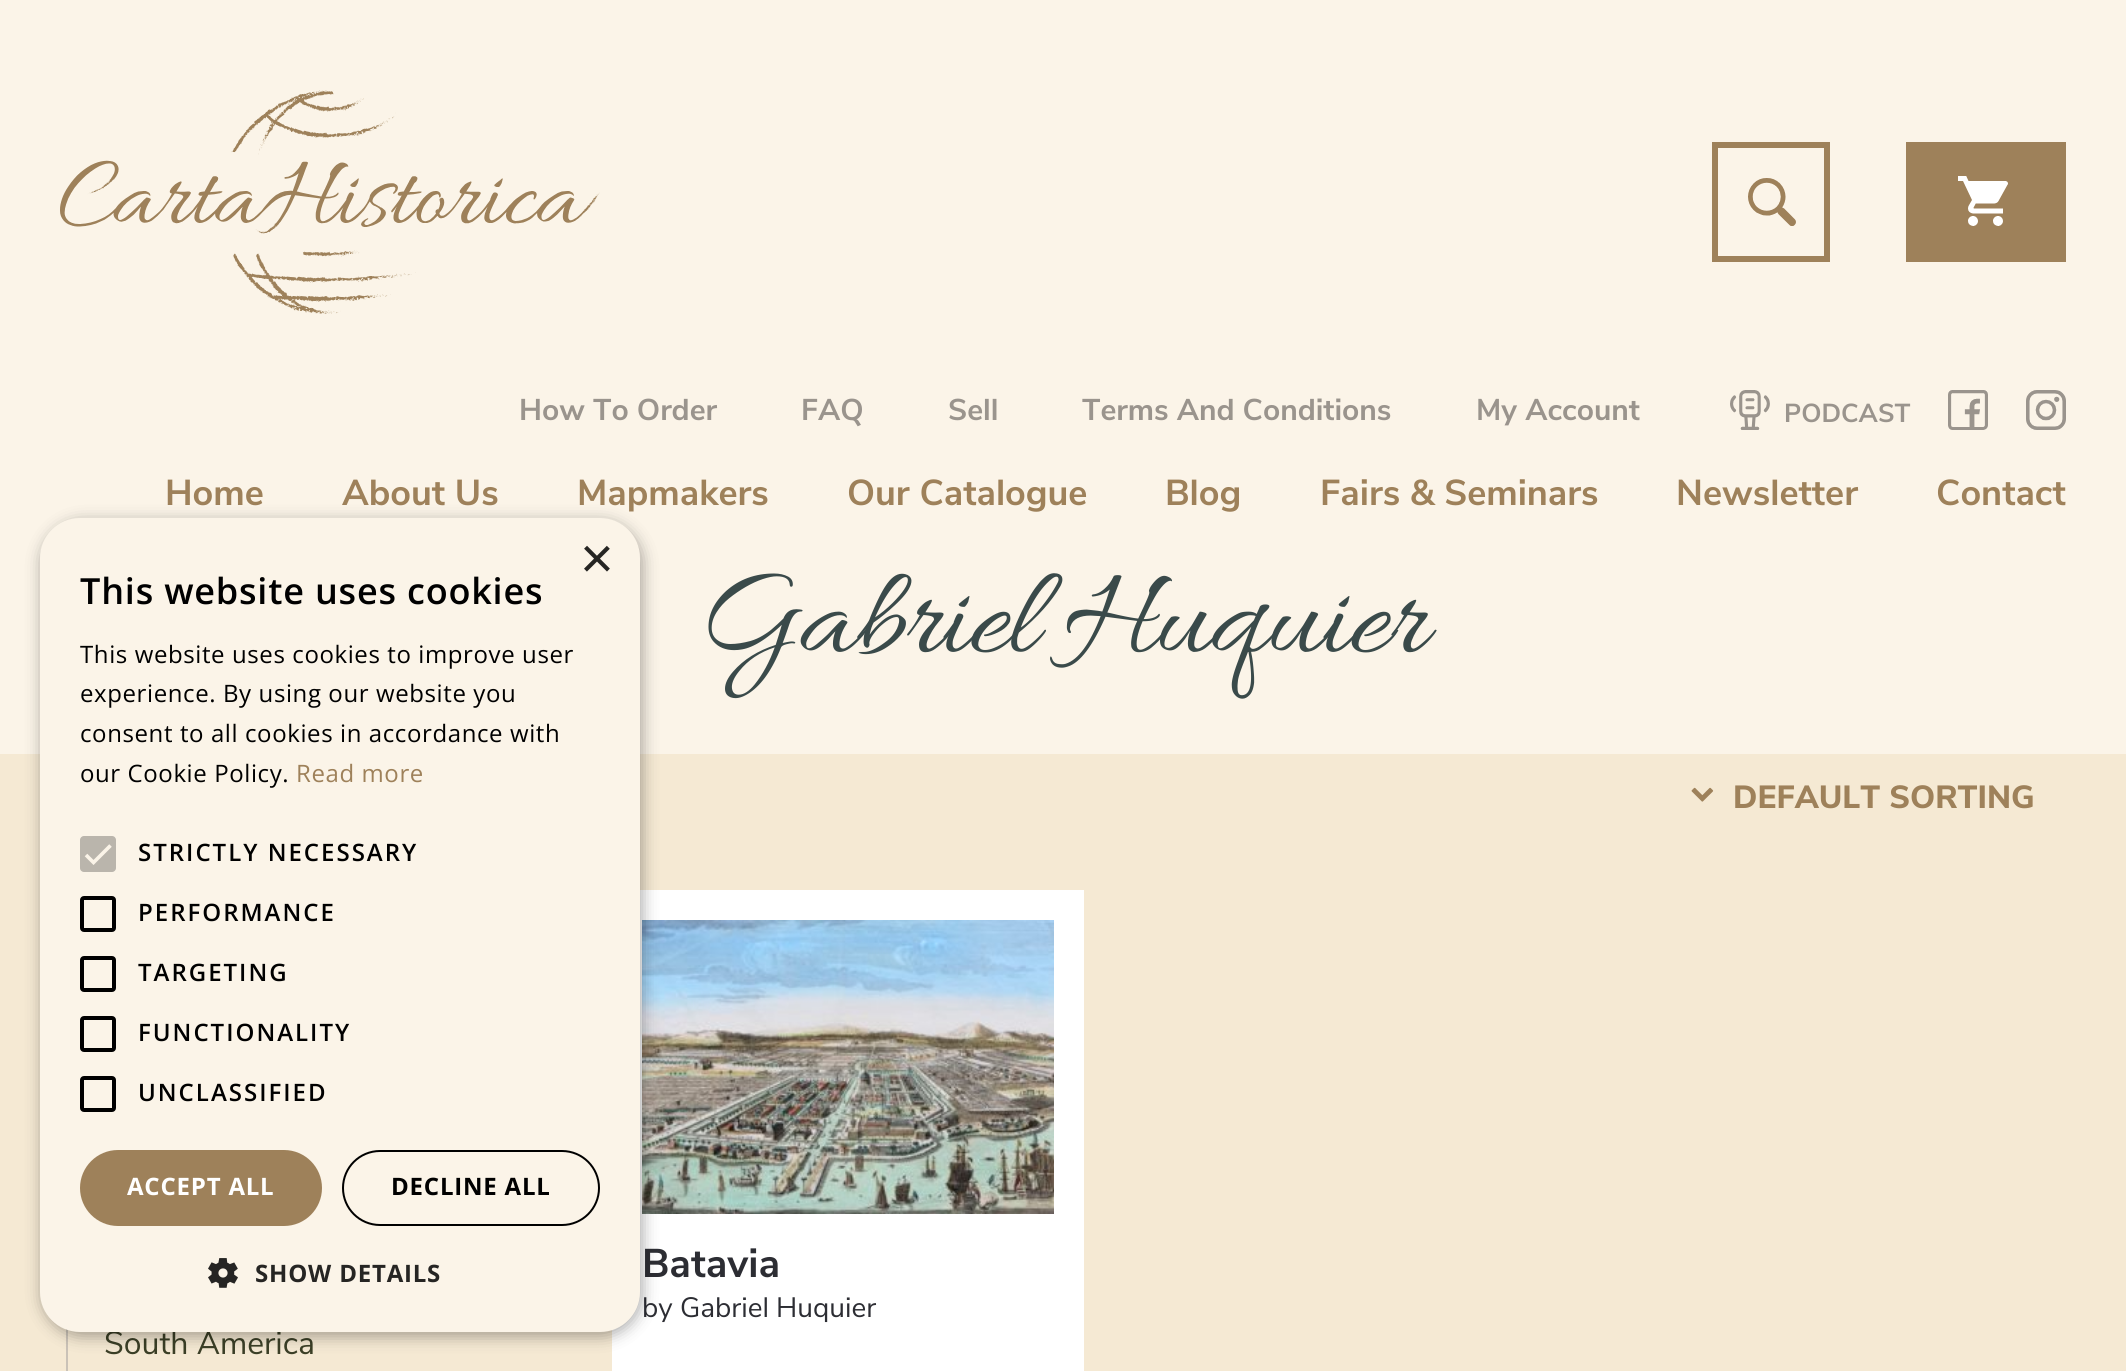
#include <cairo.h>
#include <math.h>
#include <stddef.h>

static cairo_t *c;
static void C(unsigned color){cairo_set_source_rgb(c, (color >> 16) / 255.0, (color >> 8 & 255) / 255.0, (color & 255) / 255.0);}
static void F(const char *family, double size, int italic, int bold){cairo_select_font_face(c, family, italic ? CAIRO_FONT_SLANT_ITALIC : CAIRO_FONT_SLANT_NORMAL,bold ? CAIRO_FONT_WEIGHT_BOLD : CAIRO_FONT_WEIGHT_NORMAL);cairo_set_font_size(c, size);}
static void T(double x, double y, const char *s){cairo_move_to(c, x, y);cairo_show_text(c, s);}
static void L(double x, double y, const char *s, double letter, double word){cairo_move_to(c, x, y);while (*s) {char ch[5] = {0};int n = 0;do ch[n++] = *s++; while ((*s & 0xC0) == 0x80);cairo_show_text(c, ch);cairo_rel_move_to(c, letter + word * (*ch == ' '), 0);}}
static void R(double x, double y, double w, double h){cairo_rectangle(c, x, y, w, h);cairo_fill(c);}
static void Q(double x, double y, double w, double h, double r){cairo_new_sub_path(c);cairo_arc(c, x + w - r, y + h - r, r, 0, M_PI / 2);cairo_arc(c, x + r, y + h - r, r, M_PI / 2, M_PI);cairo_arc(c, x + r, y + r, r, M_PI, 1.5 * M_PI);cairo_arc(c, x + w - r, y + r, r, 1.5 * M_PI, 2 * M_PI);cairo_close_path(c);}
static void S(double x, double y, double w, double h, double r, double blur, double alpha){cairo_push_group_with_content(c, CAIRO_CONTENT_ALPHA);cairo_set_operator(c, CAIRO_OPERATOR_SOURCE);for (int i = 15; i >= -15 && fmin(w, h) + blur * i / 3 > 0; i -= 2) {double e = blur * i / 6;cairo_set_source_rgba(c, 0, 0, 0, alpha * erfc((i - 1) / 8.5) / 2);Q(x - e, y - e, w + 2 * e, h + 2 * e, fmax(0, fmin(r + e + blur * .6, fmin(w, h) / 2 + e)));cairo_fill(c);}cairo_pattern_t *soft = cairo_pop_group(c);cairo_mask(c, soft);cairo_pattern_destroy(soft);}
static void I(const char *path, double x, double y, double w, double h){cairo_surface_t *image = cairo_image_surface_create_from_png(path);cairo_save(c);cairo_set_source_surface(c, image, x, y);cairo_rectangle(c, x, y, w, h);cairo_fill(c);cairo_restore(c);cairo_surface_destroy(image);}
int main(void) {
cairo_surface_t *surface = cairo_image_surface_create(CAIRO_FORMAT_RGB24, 2126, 1371);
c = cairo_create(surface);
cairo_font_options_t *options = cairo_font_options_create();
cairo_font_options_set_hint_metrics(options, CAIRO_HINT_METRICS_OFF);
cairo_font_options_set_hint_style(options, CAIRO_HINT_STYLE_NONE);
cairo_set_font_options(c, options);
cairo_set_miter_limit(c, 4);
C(0xfbf4e8);
cairo_paint(c);
I("1.png",60,90,540,224);
cairo_rectangle(c,1715,145,112,114);
C(0x9e815a);
cairo_set_line_width(c,6);
cairo_stroke(c);
I("2.png",1748,178,48,48);
R(1906,142,160,120);
I("3.png",1958,176,50,50);
F("Nunito Sans",30,0,1);
C(0x9a948d);
T(519,420,"How To Order");
T(801,420,"FAQ");
T(948,420,"Sell");
T(1082,420,"Terms And Conditions");
T(1476,420,"My Account");
I("4.png",1730,390,40,40);
F("Nunito Sans",26,0,1);
T(1784,422,"PODCAST");
I("5.png",1948,390,40,40);
I("6.png",2026,390,40,40);
F("Nunito Sans",36,0,1);
C(0x9e815a);
T(165,505,"Home");
T(342,505,"About Us");
T(577,505,"Mapmakers");
T(847,505,"Our Catalogue");
T(1165,505,"Blog");
T(1320,505,"Fairs & Seminars");
T(1676,505,"Newsletter");
T(1936,505,"Contact");
F("Allura",128,0,0);
C(0x3a4a4a);
L(699,649,"Gabriel Huquier",-2,0);
C(0xf5e9d3);
R(0,754,2126,617);
I("7.png",1691,787,23,15);
F("Nunito Sans ExtraBold",32,0,0);
C(0x9e815a);
T(1733,808,"DEFAULT SORTING");
C(0xffffff);
R(612,890,472,481);
I("8.png",642,920,412,294);
F("Nunito Sans",40,0,1);
C(0x2c2d33);
T(642,1277,"Batavia");
F("Nunito Sans",28,0,0);
T(642,1317,"by Gabriel Huquier");
C(0xcac2b7);
R(66,1329,2,42);
F("Nunito Sans",32,0,0);
C(0x3b3f26);
T(104,1354,"South America");
C(0x000000);
S(42,522,600,814,40,8,.35);
C(0xfbf4e8);
Q(40,518,600,814,40);
cairo_fill(c);
F("Liberation Sans",58,0,0);
C(0x262523);
T(580,578,"×");
F("Open Sans SemiBold",36,0,0);
C(0x000000);
L(80,604,"This website uses cookies",.8,0);
F("Open Sans",24,0,0);
L(80,663,"This website uses cookies to improve user",.6,0);
L(80,702,"experience. By using our website you",.6,0);
L(80,742,"consent to all cookies in accordance with",.6,0);
L(80,782,"our Cookie Policy.",.6,0);
C(0x9e815a);
L(296,782,"Read more",.6,0);
C(0xbab5ac);
Q(80,836,36,36,4);
cairo_fill(c);
cairo_new_path(c);
cairo_move_to(c,86,855);
cairo_line_to(c,93.5,862.5);
cairo_line_to(c,110.5,845.5);
C(0xfbf4e8);
cairo_set_line_width(c,3.6);
cairo_stroke(c);
F("Open Sans SemiBold",24,0,0);
C(0x000000);
L(138,861,"STRICTLY NECESSARY",2,0);
Q(82,898,32,32,2);
cairo_set_line_width(c,4);
cairo_stroke(c);
L(138,921,"PERFORMANCE",2,0);
Q(82,958,32,32,2);
cairo_stroke(c);
L(138,981,"TARGETING",2,0);
Q(82,1018,32,32,2);
cairo_stroke(c);
L(138,1041,"FUNCTIONALITY",2,0);
Q(82,1078,32,32,2);
cairo_stroke(c);
L(138,1101,"UNCLASSIFIED",2,0);
C(0x9e815a);
Q(80,1150,242,76,38);
cairo_fill(c);
F("Open Sans",24,0,1);
C(0xffffff);
L(127,1195,"ACCEPT ALL",.8,0);
Q(343,1151,256,74,37);
C(0x000000);
cairo_set_line_width(c,2);
cairo_stroke(c);
L(391,1195,"DECLINE ALL",.8,0);
I("9.png",208,1258,30,30);
C(0x262523);
L(255,1282,"SHOW DETAILS",.8,0);
cairo_surface_write_to_png(surface, "o.png");
cairo_font_options_destroy(options);
cairo_destroy(c);
cairo_surface_destroy(surface);
return 0;
}
